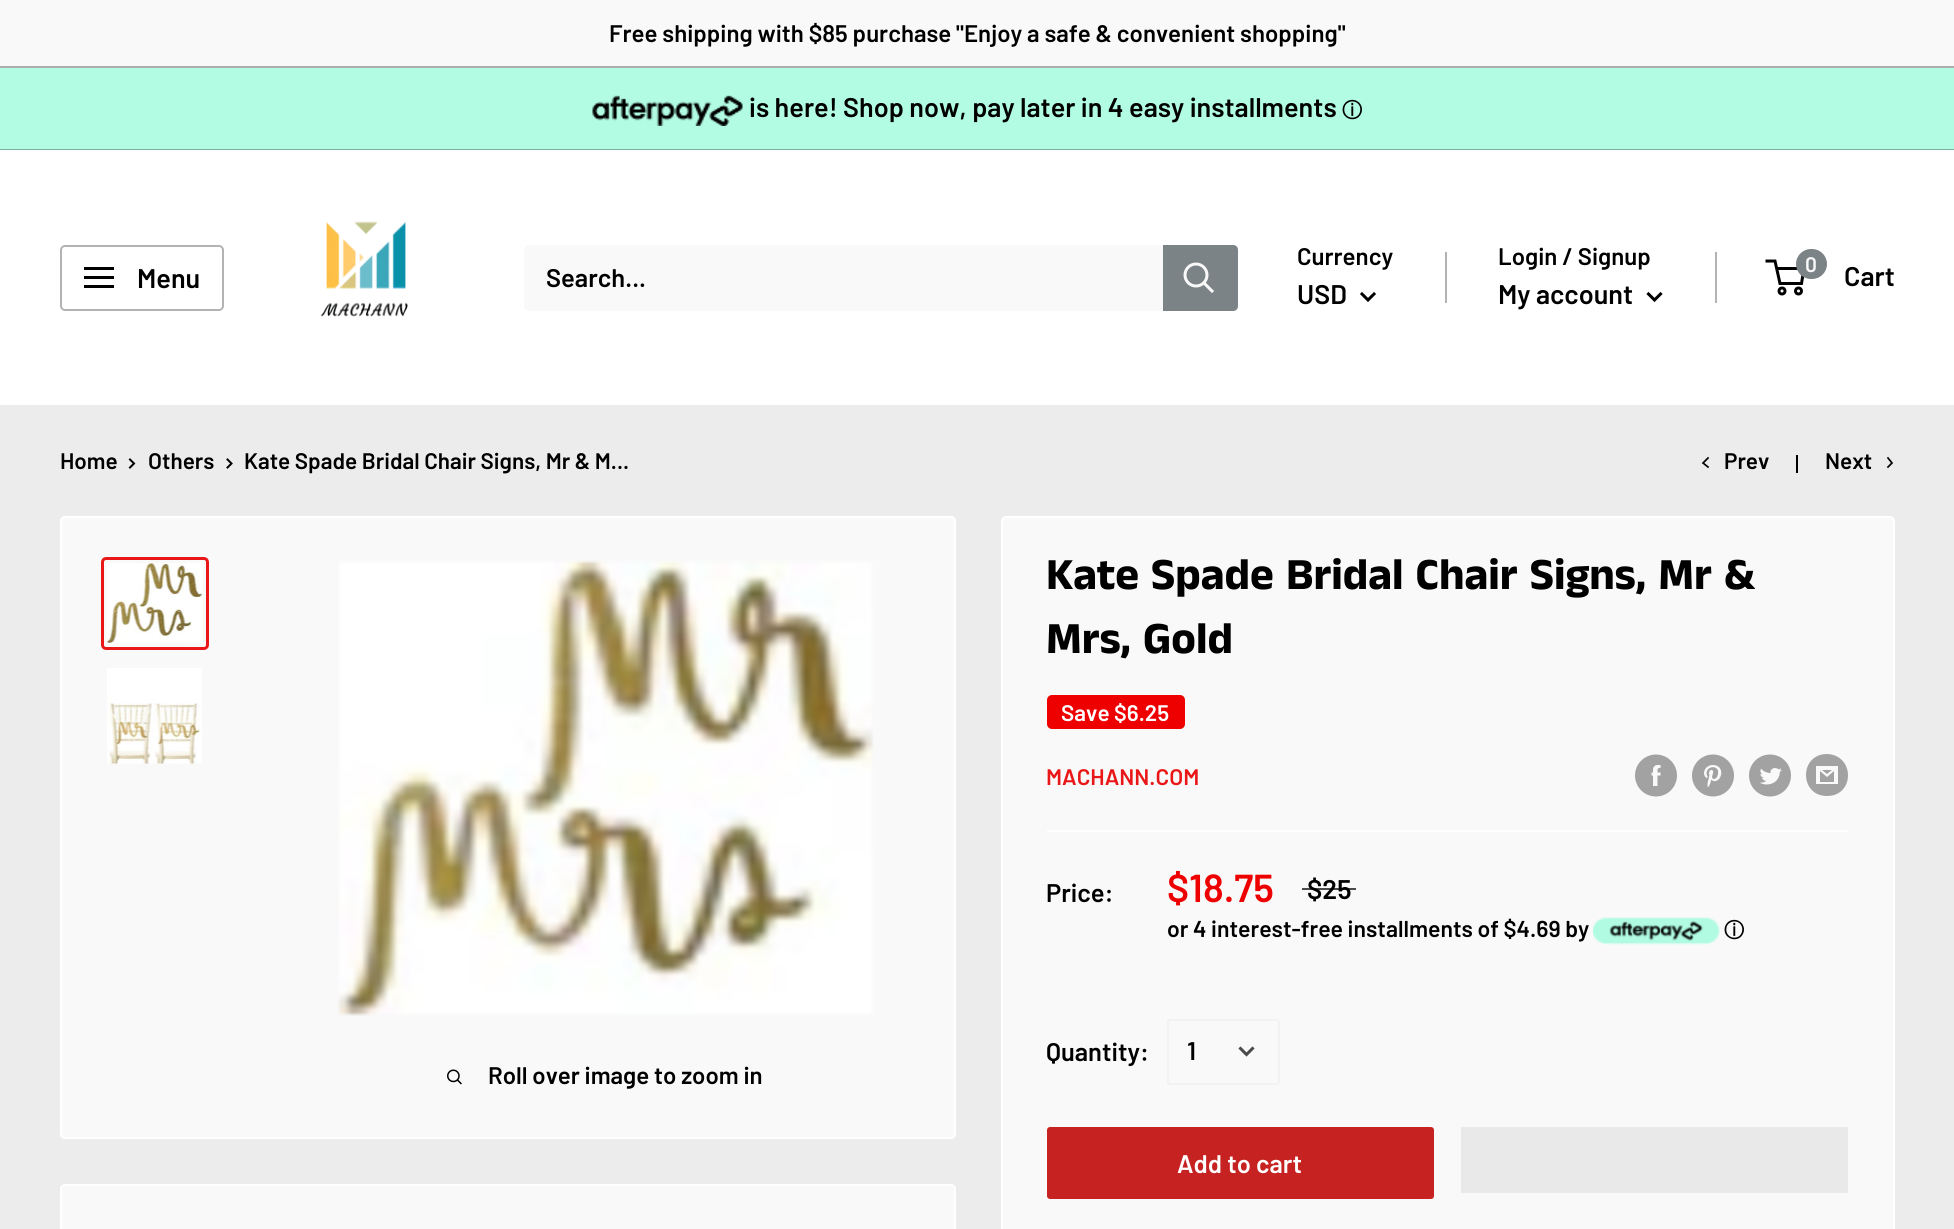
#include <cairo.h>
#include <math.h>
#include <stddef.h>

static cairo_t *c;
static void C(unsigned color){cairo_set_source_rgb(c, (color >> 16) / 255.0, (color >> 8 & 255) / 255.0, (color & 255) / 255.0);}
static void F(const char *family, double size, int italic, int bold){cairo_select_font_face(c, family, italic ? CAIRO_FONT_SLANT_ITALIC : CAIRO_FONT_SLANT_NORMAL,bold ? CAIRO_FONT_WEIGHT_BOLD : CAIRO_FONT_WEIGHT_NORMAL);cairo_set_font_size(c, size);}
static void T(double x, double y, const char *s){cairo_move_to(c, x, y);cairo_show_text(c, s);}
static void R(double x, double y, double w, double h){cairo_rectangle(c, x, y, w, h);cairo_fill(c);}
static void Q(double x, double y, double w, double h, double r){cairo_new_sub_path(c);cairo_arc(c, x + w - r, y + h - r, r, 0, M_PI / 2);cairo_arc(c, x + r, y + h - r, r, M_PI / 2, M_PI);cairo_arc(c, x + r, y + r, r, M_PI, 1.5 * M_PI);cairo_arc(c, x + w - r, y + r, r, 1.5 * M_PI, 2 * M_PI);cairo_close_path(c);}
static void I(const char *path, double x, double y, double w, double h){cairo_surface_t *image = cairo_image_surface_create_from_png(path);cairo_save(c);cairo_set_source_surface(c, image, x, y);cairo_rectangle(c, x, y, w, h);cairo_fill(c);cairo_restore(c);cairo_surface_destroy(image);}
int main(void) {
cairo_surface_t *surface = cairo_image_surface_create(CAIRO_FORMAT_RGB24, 1954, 1229);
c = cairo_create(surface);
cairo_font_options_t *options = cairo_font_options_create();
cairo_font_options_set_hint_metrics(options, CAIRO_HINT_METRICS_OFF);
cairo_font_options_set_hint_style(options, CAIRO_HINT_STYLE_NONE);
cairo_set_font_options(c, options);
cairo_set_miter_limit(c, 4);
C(0xececec);
cairo_paint(c);
C(0xf9f9f9);
R(0,0,1954,66);
C(0xaeaeae);
R(0,66,1954,2);
F("Barlow SemiBold",24,0,0);
C(0x000000);
T(609,42,"Free shipping with $85 purchase \"Enjoy a safe & convenient shopping\"");
C(0xb2fce4);
R(0,68,1954,81);
C(0x7db0a0);
R(0,149,1954,1);
I("1.png",592,95,151,31);
F("Barlow SemiBold",27,0,0);
C(0x000000);
T(749,117,"is here! Shop now, pay later in 4 easy installments");
F("WenQuanYi Zen Hei",20,0,1);
T(1342,117,"ⓘ");
C(0xffffff);
R(0,150,1954,255);
Q(61,246,162,64,4);
C(0xb3b3b3);
cairo_stroke(c);
I("2.png",84,267,30,21);
F("Barlow SemiBold",27,0,0);
C(0x000000);
T(137,288,"Menu");
I("3.png",320,221,88,96);
C(0xf9f9f9);
Q(524,245,714,66,5);
cairo_fill(c);
F("Barlow SemiBold",25.5,0,0);
C(0x000000);
T(546,287,"Search...");
C(0x7c8387);
cairo_new_path(c);
cairo_move_to(c,1163,245);
cairo_line_to(c,1233,245);
cairo_curve_to(c,1236,245,1238,247,1238,250);
cairo_line_to(c,1238,306);
cairo_curve_to(c,1238,309,1236,311,1233,311);
cairo_line_to(c,1163,311);
cairo_close_path(c);
cairo_fill(c);
cairo_new_path(c);
cairo_move_to(c,1212,291);
cairo_line_to(c,1204.5,283.5);
C(0xf9f9f9);
cairo_set_line_width(c,3);
cairo_set_line_cap(c,CAIRO_LINE_CAP_SQUARE);
cairo_stroke(c);
cairo_arc(c,1196,275,11,0,2 * M_PI);
cairo_set_line_cap(c,CAIRO_LINE_CAP_BUTT);
cairo_stroke(c);
F("Barlow SemiBold",24,0,0);
C(0x000000);
T(1297,265,"Currency");
C(0xb3b3b3);
R(1445,252,2,51);
F("Barlow SemiBold",27,0,0);
C(0x000000);
T(1297,304,"USD");
cairo_new_path(c);
cairo_move_to(c,1374,294);
cairo_line_to(c,1368,300);
cairo_line_to(c,1362,294);
cairo_set_line_cap(c,CAIRO_LINE_CAP_SQUARE);
cairo_stroke(c);
F("Barlow SemiBold",24,0,0);
T(1498,265,"Login / Signup");
C(0xb3b3b3);
R(1715,252,2,51);
F("Barlow SemiBold",27,0,0);
C(0x000000);
T(1498,304,"My account");
cairo_new_path(c);
cairo_move_to(c,1660.5,294);
cairo_line_to(c,1654.5,300);
cairo_line_to(c,1648.5,294);
cairo_stroke(c);
cairo_arc(c,1782,291,3,0,2 * M_PI);
cairo_set_line_cap(c,CAIRO_LINE_CAP_BUTT);
cairo_stroke(c);
cairo_arc(c,1798.5,291,3,0,2 * M_PI);
cairo_stroke(c);
cairo_new_path(c);
cairo_move_to(c,1776.5,268.5);
cairo_line_to(c,1804,268.5);
cairo_line_to(c,1801.5,283.5);
cairo_line_to(c,1780,283.5);
cairo_line_to(c,1775,261);
cairo_line_to(c,1765.5,261);
cairo_stroke(c);
C(0x7c8387);
Q(1796,249,31,30,15);
cairo_fill(c);
F("Barlow SemiBold",21,0,0);
C(0xf9f9f9);
T(1805,272,"0");
F("Barlow SemiBold",27,0,0);
C(0x000000);
T(1844,286,"Cart");
F("Barlow SemiBold",22.5,0,0);
T(60,469,"Home");
cairo_new_path(c);
cairo_move_to(c,130,459.5);
cairo_line_to(c,134,463.5);
cairo_line_to(c,130,467.5);
cairo_set_line_width(c,2);
cairo_set_line_cap(c,CAIRO_LINE_CAP_SQUARE);
cairo_stroke(c);
T(148,469,"Others");
cairo_new_path(c);
cairo_move_to(c,227.5,459.5);
cairo_line_to(c,231.5,463.5);
cairo_line_to(c,227.5,467.5);
cairo_stroke(c);
T(244,469,"Kate Spade Bridal Chair Signs, Mr & M...");
cairo_new_path(c);
cairo_move_to(c,1708,467);
cairo_line_to(c,1703,463);
cairo_line_to(c,1708,458);
cairo_set_line_width(c,1.7);
cairo_stroke(c);
T(1724,469,"Prev");
R(1796,455,2,18);
T(1825,469,"Next");
cairo_new_path(c);
cairo_move_to(c,1888,458);
cairo_line_to(c,1892,463);
cairo_line_to(c,1888,467);
cairo_stroke(c);
C(0xf9f9f9);
Q(61,517,894,621,4);
cairo_fill_preserve(c);
C(0xffffff);
cairo_set_line_width(c,2);
cairo_set_line_cap(c,CAIRO_LINE_CAP_BUTT);
cairo_stroke(c);
Q(102.5,558.5,105,90,3.5);
C(0xe91717);
cairo_set_line_width(c,3);
cairo_stroke(c);
I("4.png",106,563,97,80);
I("5.png",107,668,95,96);
I("6.png",338,560,536,456);
I("7.png",447,1069,15,16);
F("Barlow SemiBold",24,0,0);
C(0x000000);
T(488,1084,"Roll over image to zoom in");
C(0xf9f9f9);
Q(1002,517,892,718,4);
cairo_fill_preserve(c);
C(0xffffff);
cairo_set_line_width(c,2);
cairo_stroke(c);
F("Anek Tamil",45,0,1);
C(0x000000);
T(1046,589,"Kate Spade Bridal Chair Signs, Mr &");
T(1046,653,"Mrs, Gold");
C(0xee0000);
Q(1047,695,138,34,5);
cairo_fill(c);
F("Barlow SemiBold",22.5,0,0);
C(0xffffff);
T(1061,721,"Save $6.25");
C(0xe91717);
T(1046,785,"MACHANN.COM");
I("8.png",1635,754,42,43);
I("9.png",1692,754,42,43);
I("10.png",1749,754,42,43);
C(0xa2a2a2);
cairo_new_path(c);
cairo_move_to(c,1827,796);
cairo_curve_to(c,1799,796,1799,754,1827,754);
cairo_curve_to(c,1855,755,1855,796,1827,796);
cairo_close_path(c);
cairo_move_to(c,1822,770);
cairo_line_to(c,1832,770);
cairo_line_to(c,1827,774);
cairo_close_path(c);
cairo_move_to(c,1834,771);
cairo_line_to(c,1834,782);
cairo_line_to(c,1820,782);
cairo_line_to(c,1820,771);
cairo_line_to(c,1827,777);
cairo_close_path(c);
cairo_move_to(c,1838,766);
cairo_line_to(c,1816,766);
cairo_line_to(c,1816,784);
cairo_line_to(c,1838,784);
cairo_close_path(c);
cairo_fill(c);
C(0xffffff);
R(1047,830,801,2);
F("Barlow SemiBold",25.5,0,0);
C(0x000000);
T(1046,902,"Price:");
F("Barlow SemiBold",39,0,0);
C(0xee0000);
T(1167,902,"$18.75");
F("Barlow SemiBold",27,0,0);
C(0x000000);
T(1307,899,"$25");
cairo_set_source_rgba(c,0,0,0,0.7);
R(1302,888,54,2);
F("Barlow SemiBold",23,0,0);
C(0x000000);
T(1167,937,"or 4 interest-free installments of $4.69 by");
I("11.png",1593,917,127,28);
F("WenQuanYi Zen Hei",20,0,1);
T(1724,937,"ⓘ");
F("Barlow SemiBold",25.5,0,0);
T(1046,1061,"Quantity:");
Q(1168,1020,111,64,2);
C(0xf2f2f2);
cairo_stroke(c);
C(0x000000);
T(1187,1060,"1");
cairo_new_path(c);
cairo_move_to(c,1252.5,1048.5);
cairo_line_to(c,1246.5,1054.5);
cairo_line_to(c,1240.5,1048.5);
C(0x4b4b4b);
cairo_set_line_width(c,3);
cairo_set_line_cap(c,CAIRO_LINE_CAP_SQUARE);
cairo_stroke(c);
C(0xc72222);
Q(1047,1127,387,72,3);
cairo_fill(c);
C(0xffffff);
T(1177,1173,"Add to cart");
C(0xe9e9e9);
R(1461,1127,387,66);
C(0xf9f9f9);
Q(61,1185,894,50,4);
cairo_fill_preserve(c);
C(0xffffff);
cairo_set_line_width(c,2);
cairo_set_line_cap(c,CAIRO_LINE_CAP_BUTT);
cairo_stroke(c);
cairo_surface_write_to_png(surface, "o.png");
cairo_font_options_destroy(options);
cairo_destroy(c);
cairo_surface_destroy(surface);
return 0;
}
